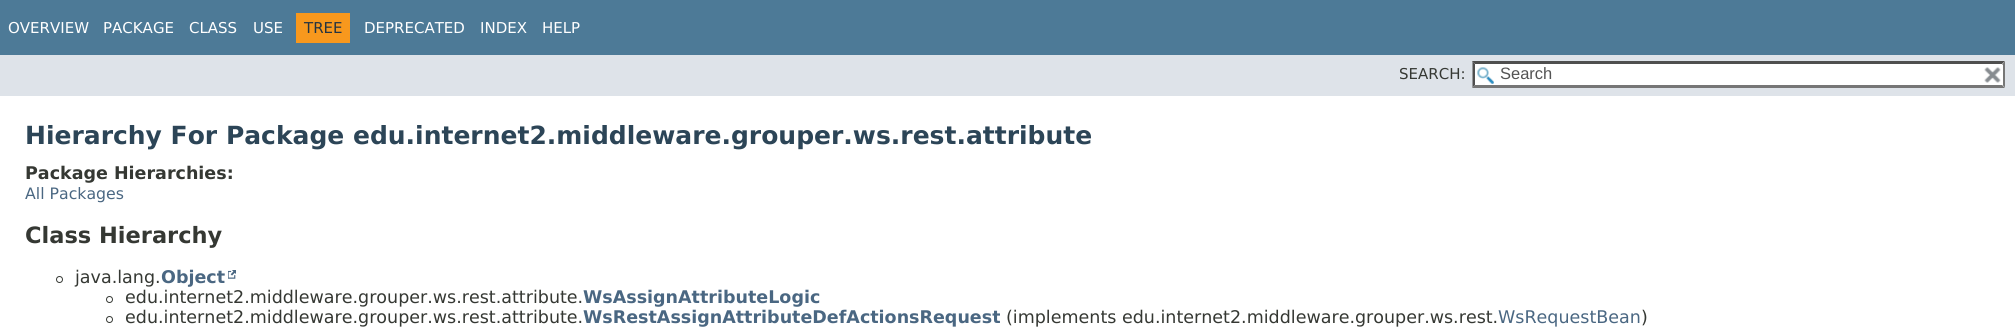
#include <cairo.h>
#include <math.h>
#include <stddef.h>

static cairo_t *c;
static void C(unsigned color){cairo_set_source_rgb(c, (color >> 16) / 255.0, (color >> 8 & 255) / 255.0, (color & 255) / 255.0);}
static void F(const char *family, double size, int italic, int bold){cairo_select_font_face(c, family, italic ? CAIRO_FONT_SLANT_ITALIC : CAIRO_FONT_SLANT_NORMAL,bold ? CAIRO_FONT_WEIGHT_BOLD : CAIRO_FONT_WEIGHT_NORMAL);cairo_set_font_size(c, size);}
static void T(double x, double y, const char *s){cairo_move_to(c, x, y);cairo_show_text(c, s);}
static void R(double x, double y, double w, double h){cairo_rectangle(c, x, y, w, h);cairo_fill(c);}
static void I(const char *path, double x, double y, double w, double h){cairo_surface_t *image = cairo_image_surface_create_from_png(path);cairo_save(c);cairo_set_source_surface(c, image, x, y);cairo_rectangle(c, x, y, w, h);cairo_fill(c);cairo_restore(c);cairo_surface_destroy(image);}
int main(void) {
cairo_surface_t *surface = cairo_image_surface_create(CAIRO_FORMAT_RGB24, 2015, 328);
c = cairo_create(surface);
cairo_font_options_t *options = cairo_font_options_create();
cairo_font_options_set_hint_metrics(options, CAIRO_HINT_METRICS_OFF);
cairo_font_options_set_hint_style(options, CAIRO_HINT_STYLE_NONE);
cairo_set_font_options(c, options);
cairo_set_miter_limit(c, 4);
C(0xffffff);
cairo_paint(c);
C(0x4d7a97);
R(0,0,2015,55);
F("DejaVu Sans",15,0,0);
C(0xffffff);
T(8,33,"OVERVIEW");
T(103,33,"PACKAGE");
T(189,33,"CLASS");
T(253,33,"USE");
C(0xf8981d);
R(296,13,54,30);
C(0x253441);
T(304,33,"TREE");
C(0xffffff);
T(364,33,"DEPRECATED");
T(480,33,"INDEX");
T(542,33,"HELP");
C(0xdee3e9);
R(0,55,2015,41);
C(0x353833);
T(1399,79,"SEARCH:");
C(0xffffff);
R(1473,61,532,27);
I("1.png",1477,67,17,17);
C(0x4f4f4f);
cairo_new_path(c);
cairo_move_to(c,1472,61);
cairo_line_to(c,2005,61);
cairo_line_to(c,2002,64);
cairo_line_to(c,1475,64);
cairo_close_path(c);
cairo_fill(c);
C(0x767676);
cairo_new_path(c);
cairo_move_to(c,2005,61);
cairo_line_to(c,2005,87.5);
cairo_line_to(c,2002.5,85);
cairo_line_to(c,2002.5,64);
cairo_close_path(c);
cairo_fill(c);
cairo_new_path(c);
cairo_move_to(c,2005,88);
cairo_line_to(c,1472,88);
cairo_line_to(c,1475,85);
cairo_line_to(c,2002,85);
cairo_close_path(c);
cairo_fill(c);
C(0x4f4f4f);
cairo_new_path(c);
cairo_move_to(c,1472.5,87.5);
cairo_line_to(c,1472.5,61);
cairo_line_to(c,1475,64);
cairo_line_to(c,1475,85);
cairo_close_path(c);
cairo_fill(c);
F("Liberation Sans",16.5,0,0);
C(0x545454);
T(1500,79,"Search");
C(0xffffff);
R(2002,65,1,20);
I("2.png",1984,67,17,16);
F("DejaVu Sans",25,0,1);
C(0x2c4557);
T(25,144,"Hierarchy For Package edu.internet2.middleware.grouper.ws.rest.attribute");
F("DejaVu Sans",17.5,0,1);
C(0x353833);
T(25,179,"Package Hierarchies:");
F("DejaVu Sans",15.75,0,0);
C(0x4a6782);
T(25,199,"All Packages");
F("DejaVu Sans",22.5,0,1);
C(0x353833);
T(25,243,"Class Hierarchy");
cairo_new_path(c);
cairo_arc(c,59.5,279.5,3,0,2 * M_PI);
cairo_set_line_width(c,1);
cairo_stroke(c);
F("DejaVu Sans",17.5,0,0);
T(75,283,"java.lang.");
F("DejaVu Sans",17.5,0,1);
C(0x4a6782);
T(161,283,"Object");
I("3.png",228,270,8,9);
cairo_arc(c,109.5,299.5,3,0,2 * M_PI);
C(0x353833);
cairo_stroke(c);
F("DejaVu Sans",17.5,0,0);
T(125,303,"edu.internet2.middleware.grouper.ws.rest.attribute.");
F("DejaVu Sans",17.5,0,1);
C(0x4a6782);
T(583,303,"WsAssignAttributeLogic");
cairo_new_path(c);
cairo_arc(c,109.5,319.5,3,0,2 * M_PI);
C(0x353833);
cairo_stroke(c);
F("DejaVu Sans",17.5,0,0);
T(125,323,"edu.internet2.middleware.grouper.ws.rest.attribute.");
F("DejaVu Sans",17.5,0,1);
C(0x4a6782);
T(583,323,"WsRestAssignAttributeDefActionsRequest");
F("DejaVu Sans",17.5,0,0);
C(0x353833);
T(1006,323,"(implements edu.internet2.middleware.grouper.ws.rest.");
C(0x4a6782);
T(1498,323,"WsRequestBean");
C(0x353833);
T(1641,323,")");
cairo_surface_write_to_png(surface, "o.png");
cairo_font_options_destroy(options);
cairo_destroy(c);
cairo_surface_destroy(surface);
return 0;
}
